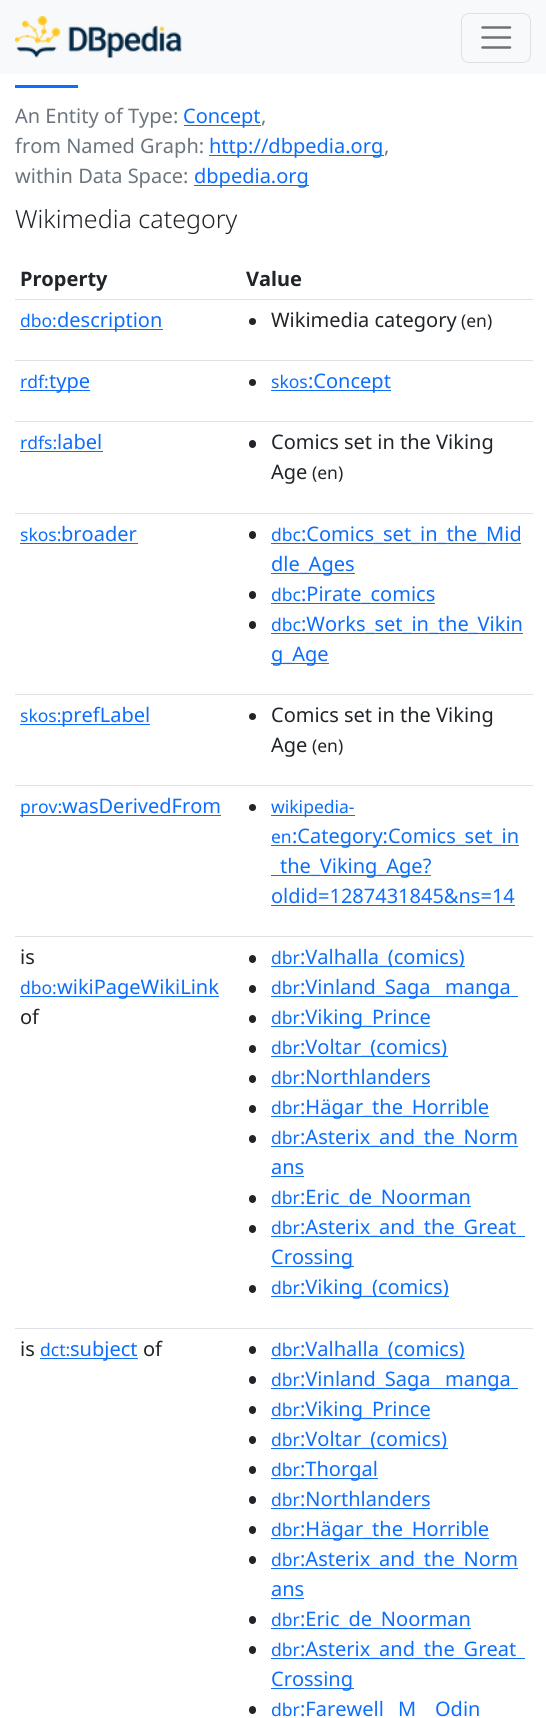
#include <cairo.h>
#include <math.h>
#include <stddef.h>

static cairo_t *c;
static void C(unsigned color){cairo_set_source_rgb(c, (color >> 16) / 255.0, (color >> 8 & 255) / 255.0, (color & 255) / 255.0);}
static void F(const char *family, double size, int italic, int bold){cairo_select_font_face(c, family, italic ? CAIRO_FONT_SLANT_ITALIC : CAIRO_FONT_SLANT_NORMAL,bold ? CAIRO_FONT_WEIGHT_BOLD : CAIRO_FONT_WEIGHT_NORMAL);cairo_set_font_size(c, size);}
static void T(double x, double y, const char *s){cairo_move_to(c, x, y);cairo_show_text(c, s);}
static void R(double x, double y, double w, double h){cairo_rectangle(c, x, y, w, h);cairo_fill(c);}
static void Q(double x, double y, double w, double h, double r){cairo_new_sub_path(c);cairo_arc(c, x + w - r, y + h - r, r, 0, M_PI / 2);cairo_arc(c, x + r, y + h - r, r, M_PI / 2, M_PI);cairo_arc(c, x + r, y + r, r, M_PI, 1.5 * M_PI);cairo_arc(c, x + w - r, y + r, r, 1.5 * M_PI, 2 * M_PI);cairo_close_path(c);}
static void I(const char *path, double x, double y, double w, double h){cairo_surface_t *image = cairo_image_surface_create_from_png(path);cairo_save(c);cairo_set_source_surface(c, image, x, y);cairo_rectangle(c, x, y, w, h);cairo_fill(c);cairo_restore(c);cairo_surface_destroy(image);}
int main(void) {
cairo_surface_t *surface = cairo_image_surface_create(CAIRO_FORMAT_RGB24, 546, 1718);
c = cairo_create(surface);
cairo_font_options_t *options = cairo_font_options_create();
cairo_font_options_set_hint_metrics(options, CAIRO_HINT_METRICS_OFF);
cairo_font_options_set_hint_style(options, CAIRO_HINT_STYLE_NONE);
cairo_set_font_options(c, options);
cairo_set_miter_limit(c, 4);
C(0xffffff);
cairo_paint(c);
C(0xf8f9fa);
R(0,0,546,74);
I("1.png",15,16,167,42);
Q(461.5,13.5,69,49,7.5);
C(0xdfe0e1);
cairo_set_line_width(c,1);
cairo_stroke(c);
cairo_new_path(c);
cairo_move_to(c,482.5,27.5);
cairo_line_to(c,510,27.5);
cairo_move_to(c,482.5,37.5);
cairo_line_to(c,510,37.5);
cairo_move_to(c,482.5,47.5);
cairo_line_to(c,510,47.5);
C(0x707071);
cairo_set_line_width(c,2.5);
cairo_set_line_cap(c,CAIRO_LINE_CAP_ROUND);
cairo_stroke(c);
C(0x0d6efd);
R(15,85,63,3);
F("Noto Sans",20,0,0);
C(0x6c757d);
T(15,123,"An Entity of Type:");
C(0x0d6efd);
R(184,125,77,1);
T(183,123,"Concept");
C(0x6c757d);
T(261,123,",");
T(15,153,"from Named Graph:");
C(0x0d6efd);
R(209,155,175,1);
T(209,153,"http://dbpedia.org");
C(0x6c757d);
T(384,153,",");
T(15,183,"within Data Space:");
C(0x0d6efd);
R(194,185,115,1);
T(194,183,"dbpedia.org");
F("Noto Sans Light",25,0,0);
C(0x212529);
T(15,228,"Wikimedia category");
F("Noto Sans",20,0,1);
T(20,286,"Property");
C(0xdee2e6);
R(15,299,518,1);
C(0x212529);
T(246,286,"Value");
F("Noto Sans",17.5,0,0);
C(0x0d6efd);
T(20,327,"dbo:");
R(20,329,143,1);
F("Noto Sans",20,0,0);
T(57,327,"description");
C(0xdee2e6);
R(15,360,518,1);
C(0x212529);
cairo_new_path(c);
cairo_arc(c,252.5,321.5,3.5,0,2 * M_PI);
cairo_fill(c);
T(271,327,"Wikimedia category");
F("Noto Sans",17.5,0,0);
T(461,327,"(en)");
C(0x0d6efd);
T(20,388,"rdf:");
R(20,390,70,1);
F("Noto Sans",20,0,0);
T(49,388,"type");
C(0xdee2e6);
R(15,421,518,1);
C(0x212529);
cairo_new_path(c);
cairo_arc(c,252.5,382.5,3.5,0,2 * M_PI);
cairo_fill(c);
F("Noto Sans",17.5,0,0);
C(0x0d6efd);
T(271,388,"skos");
R(271,390,120,1);
F("Noto Sans",20,0,0);
T(308,388,":Concept");
F("Noto Sans",17.5,0,0);
T(20,449,"rdfs:");
R(20,451,83,1);
F("Noto Sans",20,0,0);
T(57,449,"label");
C(0xdee2e6);
R(15,513,518,1);
C(0x212529);
Q(249,440,7,8,3.5);
cairo_fill(c);
T(271,449,"Comics set in the Viking");
T(271,479,"Age");
F("Noto Sans",17.5,0,0);
T(312,479,"(en)");
C(0x0d6efd);
T(20,541,"skos:");
R(20,543,118,1);
F("Noto Sans",20,0,0);
T(61,541,"broader");
C(0xdee2e6);
R(15,694,518,1);
C(0x212529);
Q(249,531,7,8,3.5);
cairo_fill(c);
F("Noto Sans",17.5,0,0);
C(0x0d6efd);
T(271,541,"dbc");
R(271,543,250,1);
F("Noto Sans",20,0,0);
T(301,541,":Comics_set_in_the_Mid");
R(271,573,84,1);
T(271,571,"dle_Ages");
C(0x212529);
Q(249,591,7,8,3.5);
cairo_fill(c);
F("Noto Sans",17.5,0,0);
C(0x0d6efd);
T(271,601,"dbc");
R(271,603,164,1);
F("Noto Sans",20,0,0);
T(301,601,":Pirate_comics");
C(0x212529);
Q(249,621,7,8,3.5);
cairo_fill(c);
F("Noto Sans",17.5,0,0);
C(0x0d6efd);
T(271,631,"dbc");
R(271,633,252,1);
F("Noto Sans",20,0,0);
T(301,631,":Works_set_in_the_Vikin");
R(271,663,58,1);
T(271,661,"g_Age");
F("Noto Sans",17.5,0,0);
T(20,722,"skos:");
R(20,724,130,1);
F("Noto Sans",20,0,0);
T(61,722,"prefLabel");
C(0xdee2e6);
R(15,785,518,1);
C(0x212529);
cairo_new_path(c);
cairo_arc(c,252.5,716.5,3.5,0,2 * M_PI);
cairo_fill(c);
T(271,722,"Comics set in the Viking");
T(271,752,"Age");
F("Noto Sans",17.5,0,0);
T(312,752,"(en)");
C(0x0d6efd);
R(20,815,201,1);
T(20,813,"prov:");
F("Noto Sans",20,0,0);
T(62,813,"wasDerivedFrom");
C(0xdee2e6);
R(15,936,518,1);
C(0x212529);
cairo_new_path(c);
cairo_arc(c,252.5,807.5,3.5,0,2 * M_PI);
cairo_fill(c);
C(0x0d6efd);
R(271,815,84,1);
F("Noto Sans",17.5,0,0);
T(271,813,"wikipedia-");
T(271,843,"en");
R(271,845,248,1);
F("Noto Sans",20,0,0);
T(292,843,":Category:Comics_set_in");
R(271,875,160,1);
T(280,873,"the_Viking_Age?");
T(271,903,"oldid=1287431845&ns=14");
R(271,905,244,1);
C(0x212529);
T(20,964,"is");
F("Noto Sans",17.5,0,0);
C(0x0d6efd);
T(20,994,"dbo:");
R(20,996,199,1);
F("Noto Sans",20,0,0);
T(57,994,"wikiPageWikiLink");
C(0x212529);
T(20,1024,"of");
C(0xdee2e6);
R(15,1328,518,1);
C(0x212529);
Q(249,955,7,8,3.5);
cairo_fill(c);
F("Noto Sans",17.5,0,0);
C(0x0d6efd);
T(271,964,"dbr");
R(271,966,194,1);
F("Noto Sans",20,0,0);
T(300,964,":Valhalla_(comics)");
C(0x212529);
Q(249,985,7,8,3.5);
cairo_fill(c);
F("Noto Sans",17.5,0,0);
C(0x0d6efd);
T(271,994,"dbr");
R(271,996,247,1);
F("Noto Sans",20,0,0);
T(300,994,":Vinland_Saga");
T(445,994,"manga");
C(0x212529);
Q(249,1015,7,8,3.5);
cairo_fill(c);
F("Noto Sans",17.5,0,0);
C(0x0d6efd);
T(271,1024,"dbr");
R(271,1026,159,1);
F("Noto Sans",20,0,0);
T(300,1024,":Viking_Prince");
C(0x212529);
Q(249,1045,7,8,3.5);
cairo_fill(c);
F("Noto Sans",17.5,0,0);
C(0x0d6efd);
T(271,1054,"dbr");
R(271,1056,177,1);
F("Noto Sans",20,0,0);
T(300,1054,":Voltar_(comics)");
C(0x212529);
Q(249,1075,7,8,3.5);
cairo_fill(c);
F("Noto Sans",17.5,0,0);
C(0x0d6efd);
T(271,1084,"dbr");
R(271,1086,159,1);
F("Noto Sans",20,0,0);
T(300,1084,":Northlanders");
C(0x212529);
Q(249,1105,7,8,3.5);
cairo_fill(c);
F("Noto Sans",17.5,0,0);
C(0x0d6efd);
T(271,1114,"dbr");
R(271,1116,218,1);
F("Noto Sans",20,0,0);
T(300,1114,":Hägar_the_Horrible");
C(0x212529);
Q(249,1135,7,8,3.5);
cairo_fill(c);
F("Noto Sans",17.5,0,0);
C(0x0d6efd);
T(271,1144,"dbr");
R(271,1146,247,1);
F("Noto Sans",20,0,0);
T(300,1144,":Asterix_and_the_Norm");
T(271,1174,"ans");
R(271,1176,33,1);
C(0x212529);
Q(249,1195,7,8,3.5);
cairo_fill(c);
F("Noto Sans",17.5,0,0);
C(0x0d6efd);
T(271,1204,"dbr");
R(271,1206,200,1);
F("Noto Sans",20,0,0);
T(300,1204,":Eric_de_Noorman");
C(0x212529);
Q(249,1225,7,8,3.5);
cairo_fill(c);
F("Noto Sans",17.5,0,0);
C(0x0d6efd);
T(271,1234,"dbr");
R(271,1236,254,1);
F("Noto Sans",20,0,0);
T(300,1234,":Asterix_and_the_Great");
R(271,1266,83,1);
T(271,1264,"Crossing");
C(0x212529);
Q(249,1285,7,8,3.5);
cairo_fill(c);
F("Noto Sans",17.5,0,0);
C(0x0d6efd);
T(271,1294,"dbr");
R(271,1296,178,1);
F("Noto Sans",20,0,0);
T(300,1294,":Viking_(comics)");
C(0x212529);
T(20,1356,"is");
F("Noto Sans",17.5,0,0);
C(0x0d6efd);
T(40,1356,"dct:");
R(40,1358,98,1);
F("Noto Sans",20,0,0);
T(70,1356,"subject");
C(0x212529);
T(143,1356,"of");
Q(249,1346,7,8,3.5);
cairo_fill(c);
F("Noto Sans",17.5,0,0);
C(0x0d6efd);
T(271,1356,"dbr");
R(271,1358,194,1);
F("Noto Sans",20,0,0);
T(300,1356,":Valhalla_(comics)");
C(0x212529);
Q(249,1376,7,8,3.5);
cairo_fill(c);
F("Noto Sans",17.5,0,0);
C(0x0d6efd);
T(271,1386,"dbr");
R(271,1388,247,1);
F("Noto Sans",20,0,0);
T(300,1386,":Vinland_Saga");
T(445,1386,"manga");
C(0x212529);
Q(249,1406,7,8,3.5);
cairo_fill(c);
F("Noto Sans",17.5,0,0);
C(0x0d6efd);
T(271,1416,"dbr");
R(271,1418,159,1);
F("Noto Sans",20,0,0);
T(300,1416,":Viking_Prince");
C(0x212529);
Q(249,1436,7,8,3.5);
cairo_fill(c);
F("Noto Sans",17.5,0,0);
C(0x0d6efd);
T(271,1446,"dbr");
R(271,1448,177,1);
F("Noto Sans",20,0,0);
T(300,1446,":Voltar_(comics)");
C(0x212529);
Q(249,1466,7,8,3.5);
cairo_fill(c);
F("Noto Sans",17.5,0,0);
C(0x0d6efd);
T(271,1476,"dbr");
R(271,1478,107,1);
F("Noto Sans",20,0,0);
T(300,1476,":Thorgal");
C(0x212529);
Q(249,1496,7,8,3.5);
cairo_fill(c);
F("Noto Sans",17.5,0,0);
C(0x0d6efd);
T(271,1506,"dbr");
R(271,1508,159,1);
F("Noto Sans",20,0,0);
T(300,1506,":Northlanders");
C(0x212529);
Q(249,1526,7,8,3.5);
cairo_fill(c);
F("Noto Sans",17.5,0,0);
C(0x0d6efd);
T(271,1536,"dbr");
R(271,1538,218,1);
F("Noto Sans",20,0,0);
T(300,1536,":Hägar_the_Horrible");
C(0x212529);
Q(249,1556,7,8,3.5);
cairo_fill(c);
F("Noto Sans",17.5,0,0);
C(0x0d6efd);
T(271,1566,"dbr");
R(271,1568,247,1);
F("Noto Sans",20,0,0);
T(300,1566,":Asterix_and_the_Norm");
T(271,1596,"ans");
R(271,1598,33,1);
C(0x212529);
Q(249,1616,7,8,3.5);
cairo_fill(c);
F("Noto Sans",17.5,0,0);
C(0x0d6efd);
T(271,1626,"dbr");
R(271,1628,200,1);
F("Noto Sans",20,0,0);
T(300,1626,":Eric_de_Noorman");
C(0x212529);
Q(249,1646,7,8,3.5);
cairo_fill(c);
F("Noto Sans",17.5,0,0);
C(0x0d6efd);
T(271,1656,"dbr");
R(271,1658,254,1);
F("Noto Sans",20,0,0);
T(300,1656,":Asterix_and_the_Great");
R(271,1688,83,1);
T(271,1686,"Crossing");
C(0x212529);
Q(249,1706,7,8,3.5);
cairo_fill(c);
F("Noto Sans",17.5,0,0);
C(0x0d6efd);
T(271,1716,"dbr");
F("Noto Sans",20,0,0);
T(300,1716,":Farewell");
T(398,1716,"M");
T(435,1716,"Odin");
cairo_surface_write_to_png(surface, "o.png");
cairo_font_options_destroy(options);
cairo_destroy(c);
cairo_surface_destroy(surface);
return 0;
}
